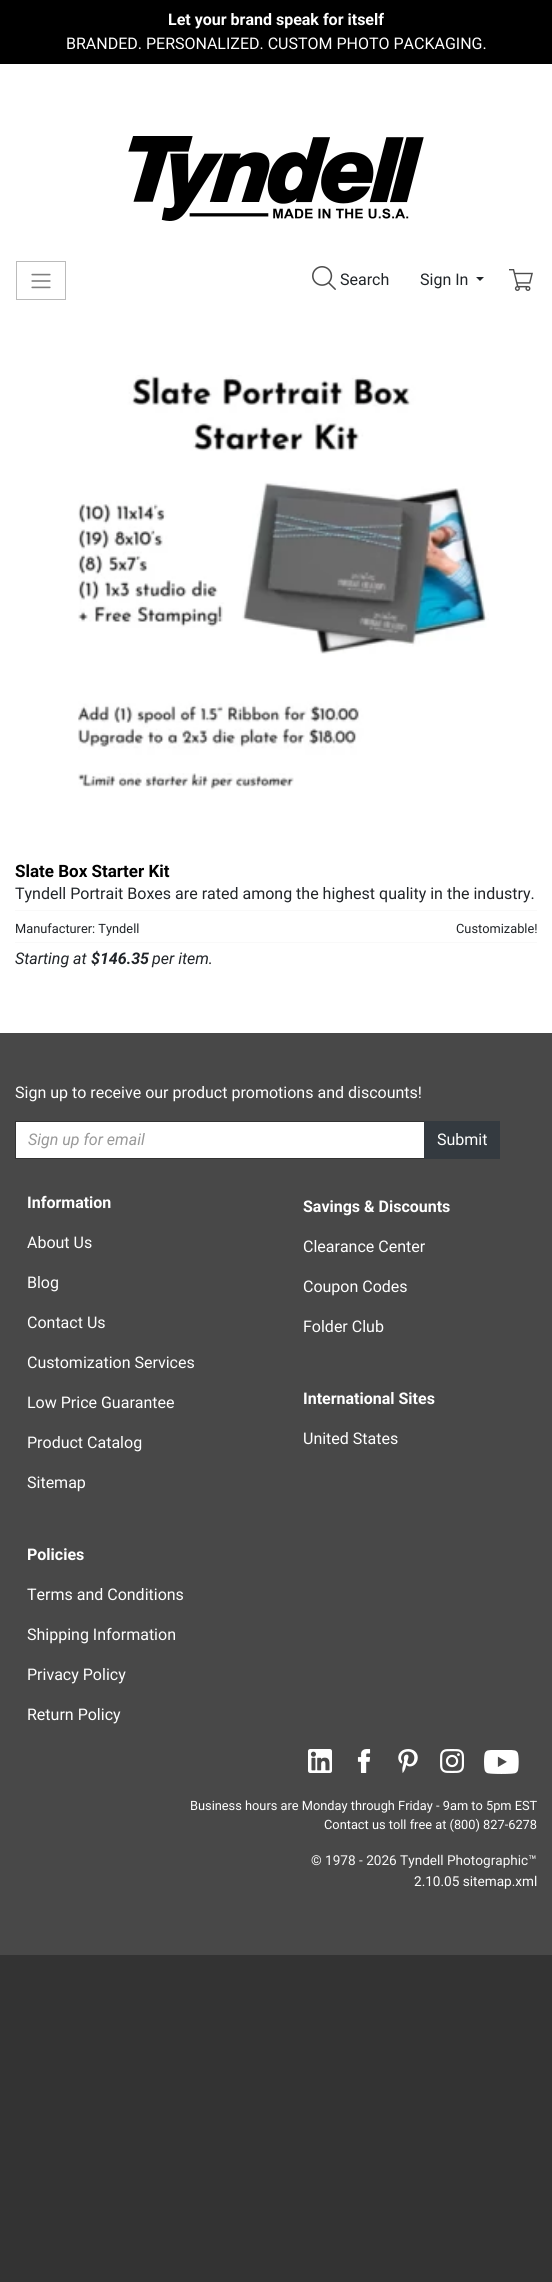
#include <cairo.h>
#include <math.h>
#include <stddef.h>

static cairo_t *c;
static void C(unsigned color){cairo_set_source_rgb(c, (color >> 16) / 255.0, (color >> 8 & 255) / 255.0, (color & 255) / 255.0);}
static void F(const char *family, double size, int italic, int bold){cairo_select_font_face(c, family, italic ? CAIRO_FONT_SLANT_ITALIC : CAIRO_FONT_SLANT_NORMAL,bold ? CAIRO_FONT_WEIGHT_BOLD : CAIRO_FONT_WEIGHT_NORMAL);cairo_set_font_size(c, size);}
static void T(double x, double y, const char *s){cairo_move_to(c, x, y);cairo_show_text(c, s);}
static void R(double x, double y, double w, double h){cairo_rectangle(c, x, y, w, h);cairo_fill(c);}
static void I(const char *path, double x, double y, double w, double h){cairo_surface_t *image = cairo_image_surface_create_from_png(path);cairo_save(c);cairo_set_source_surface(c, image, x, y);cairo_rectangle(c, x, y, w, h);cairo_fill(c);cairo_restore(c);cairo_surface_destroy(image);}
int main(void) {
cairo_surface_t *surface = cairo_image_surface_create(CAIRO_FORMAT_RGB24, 552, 2282);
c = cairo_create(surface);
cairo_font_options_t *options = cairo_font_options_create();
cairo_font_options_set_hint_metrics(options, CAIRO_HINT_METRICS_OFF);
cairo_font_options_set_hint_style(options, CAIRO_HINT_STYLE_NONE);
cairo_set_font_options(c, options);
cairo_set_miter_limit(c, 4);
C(0x333333);
cairo_paint(c);
C(0xffffff);
R(0,64,552,969);
C(0x000000);
R(0,0,552,64);
F("Roboto",16,0,1);
C(0xffffff);
T(168,25,"Let your brand speak for itself");
F("Roboto",16,0,0);
T(66,49,"BRANDED. PERSONALIZED. CUSTOM PHOTO PACKAGING.");
I("1.png",128,136,296,85);
cairo_rectangle(c,16.5,261.5,49,38);
C(0xbbbbbb);
cairo_set_line_width(c,1);
cairo_stroke(c);
I("2.png",31,273,20,16);
I("3.png",312,266,24,24);
C(0x212529);
T(340,285,"Search");
T(420,285,"Sign In");
cairo_new_path(c);
cairo_move_to(c,476,277);
cairo_line_to(c,484,277);
cairo_line_to(c,480,281);
cairo_close_path(c);
cairo_fill(c);
I("4.png",509,269,24,22);
I("5.png",78,375,411,415);
F("Roboto",17,0,1);
C(0x000000);
T(15,877,"Slate Box Starter Kit");
C(0xf9f9f9);
R(15,910,522,1);
F("Roboto",16,0,0);
C(0x212529);
T(15,899,"Tyndell Portrait Boxes are rated among the highest quality in the industry.");
C(0xf9f9f9);
R(15,942,522,1);
F("Roboto",12.8,0,0);
C(0x212529);
T(15,933,"Manufacturer: Tyndell");
T(456,933,"Customizable!");
F("Roboto",16,1,0);
T(15,964,"Starting at");
F("Roboto",16,1,1);
T(91,964,"$146.35");
F("Roboto",16,1,0);
T(152,964,"per item.");
C(0x484848);
R(0,1033,552,922);
F("Roboto",16,0,0);
C(0xffffff);
T(15,1098,"Sign up to receive our product promotions and discounts!");
cairo_rectangle(c,15.5,1121.5,409,37);
cairo_fill_preserve(c);
C(0x333333);
cairo_stroke(c);
F("Roboto",16,1,0);
C(0x999999);
T(28,1145,"Sign up for email");
C(0x343a40);
R(424,1121,76,38);
F("Roboto",16,0,0);
C(0xffffff);
T(437,1145,"Submit");
F("Roboto",16,0,1);
T(27,1208,"Information");
F("Roboto",16,0,0);
T(27,1248,"About Us");
T(27,1288,"Blog");
T(27,1328,"Contact Us");
T(27,1368,"Customization Services");
T(27,1408,"Low Price Guarantee");
T(27,1448,"Product Catalog");
T(27,1488,"Sitemap");
F("Roboto",16,0,1);
T(27,1560,"Policies");
F("Roboto",16,0,0);
T(27,1600,"Terms and Conditions");
T(27,1640,"Shipping Information");
T(27,1680,"Privacy Policy");
T(27,1720,"Return Policy");
F("Roboto",16,0,1);
T(303,1212,"Savings & Discounts");
F("Roboto",16,0,0);
T(303,1252,"Clearance Center");
T(303,1292,"Coupon Codes");
T(303,1332,"Folder Club");
F("Roboto",16,0,1);
T(303,1404,"International Sites");
F("Roboto",16,0,0);
T(303,1444,"United States");
I("6.png",308,1749,24,24);
I("7.png",357,1749,14,24);
I("8.png",398,1749,20,24);
I("9.png",440,1749,24,24);
I("10.png",484,1750,35,24);
F("Roboto",12.8,0,0);
T(190,1810,"Business hours are Monday through Friday - 9am to 5pm EST");
T(324,1829,"Contact us toll free at (800) 827-6278");
F("Roboto",13.6,0,0);
C(0xf8f8f8);
T(311,1865,"© 1978 - 2026 Tyndell Photographic™");
C(0xffffff);
T(414,1886,"2.10.05 sitemap.xml");
cairo_surface_write_to_png(surface, "o.png");
cairo_font_options_destroy(options);
cairo_destroy(c);
cairo_surface_destroy(surface);
return 0;
}
